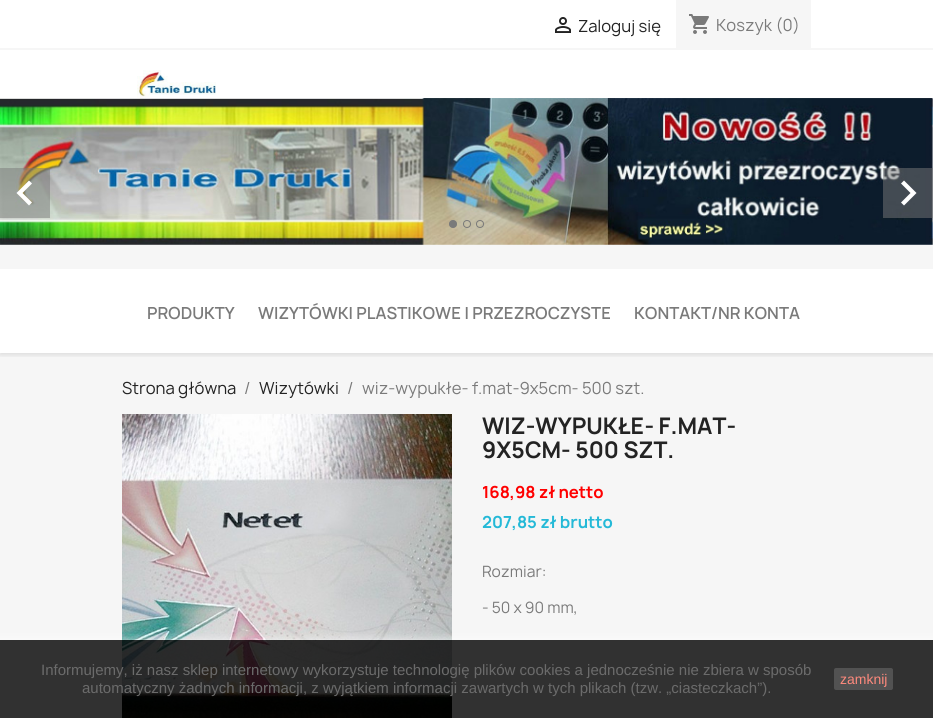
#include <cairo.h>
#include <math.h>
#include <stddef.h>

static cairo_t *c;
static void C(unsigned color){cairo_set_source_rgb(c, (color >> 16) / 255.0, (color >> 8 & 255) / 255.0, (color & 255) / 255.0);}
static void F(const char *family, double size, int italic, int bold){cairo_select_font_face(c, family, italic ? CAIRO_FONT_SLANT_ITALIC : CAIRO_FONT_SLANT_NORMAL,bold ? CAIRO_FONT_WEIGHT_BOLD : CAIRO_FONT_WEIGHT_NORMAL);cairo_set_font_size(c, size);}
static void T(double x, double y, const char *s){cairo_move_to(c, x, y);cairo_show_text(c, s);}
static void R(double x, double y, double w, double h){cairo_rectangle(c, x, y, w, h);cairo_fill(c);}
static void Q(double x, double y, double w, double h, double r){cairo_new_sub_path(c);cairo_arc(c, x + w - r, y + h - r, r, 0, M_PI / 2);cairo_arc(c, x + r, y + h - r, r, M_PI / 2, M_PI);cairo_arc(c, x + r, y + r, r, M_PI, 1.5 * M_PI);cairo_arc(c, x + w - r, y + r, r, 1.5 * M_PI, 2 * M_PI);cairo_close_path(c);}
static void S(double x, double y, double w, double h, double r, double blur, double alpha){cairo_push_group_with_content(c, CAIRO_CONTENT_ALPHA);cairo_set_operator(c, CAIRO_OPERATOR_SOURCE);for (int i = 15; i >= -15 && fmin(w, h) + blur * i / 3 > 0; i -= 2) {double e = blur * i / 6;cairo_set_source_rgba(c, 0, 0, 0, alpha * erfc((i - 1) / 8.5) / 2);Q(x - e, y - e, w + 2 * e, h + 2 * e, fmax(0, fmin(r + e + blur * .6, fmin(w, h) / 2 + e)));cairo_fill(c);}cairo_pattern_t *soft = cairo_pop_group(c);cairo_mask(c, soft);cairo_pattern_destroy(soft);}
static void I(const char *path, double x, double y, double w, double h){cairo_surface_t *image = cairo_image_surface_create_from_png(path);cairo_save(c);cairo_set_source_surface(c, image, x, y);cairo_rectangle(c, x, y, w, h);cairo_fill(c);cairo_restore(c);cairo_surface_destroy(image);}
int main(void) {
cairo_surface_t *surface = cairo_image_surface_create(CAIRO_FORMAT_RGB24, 933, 718);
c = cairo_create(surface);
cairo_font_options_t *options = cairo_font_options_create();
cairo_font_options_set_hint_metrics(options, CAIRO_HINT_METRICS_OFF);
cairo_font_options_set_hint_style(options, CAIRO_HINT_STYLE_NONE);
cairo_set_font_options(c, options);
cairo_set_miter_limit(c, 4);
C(0xffffff);
cairo_paint(c);
C(0xf6f6f6);
R(0,353,933,365);
cairo_save(c);
cairo_rectangle(c,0,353,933,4);
cairo_clip(c);
C(0x000000);
S(0,2,933,353,0,2.5,.11);
cairo_restore(c);
R(0,48,933,2);
I("1.png",555,17,16,16);
F("Manrope",16,0,0);
C(0x232323);
T(578,32,"Zaloguj się");
C(0xf6f6f6);
R(676,0,135,48);
I("2.png",689,14,20,20);
C(0x7a7a7a);
T(716,31,"Koszyk (0)");
I("3.png",137,70,79,28);
C(0xf6f6f6);
R(0,98,933,171);
I("4.png",0,98,933,147);
cairo_set_source_rgba(c,0.478,0.478,0.478,0.5);
R(0,168,50,50);
C(0xffffff);
cairo_new_path(c);
cairo_move_to(c,32,183.5);
cairo_line_to(c,22.5,193);
cairo_line_to(c,32,202.5);
cairo_line_to(c,29,205.5);
cairo_line_to(c,16.5,193);
cairo_line_to(c,29,180.5);
cairo_close_path(c);
cairo_fill(c);
cairo_set_source_rgba(c,0.478,0.478,0.478,0.5);
R(883,168,50,50);
C(0xffffff);
cairo_new_path(c);
cairo_move_to(c,904,180.5);
cairo_line_to(c,916.5,193);
cairo_line_to(c,904,205.5);
cairo_line_to(c,901,202.5);
cairo_line_to(c,910.5,193);
cairo_line_to(c,901,183.5);
cairo_close_path(c);
cairo_fill(c);
C(0x7a7a7a);
cairo_arc(c,453,224,3.5,0,2 * M_PI);
cairo_fill_preserve(c);
cairo_set_line_width(c,1);
cairo_stroke(c);
cairo_arc(c,467,224,3.5,0,2 * M_PI);
cairo_stroke(c);
cairo_arc(c,480,224,3.5,0,2 * M_PI);
cairo_stroke(c);
F("Manrope SemiBold",16,0,0);
T(147,319,"PRODUKTY");
T(258,319,"WIZYTÓWKI PLASTIKOWE I PRZEZROCZYSTE");
T(634,319,"KONTAKT/NR KONTA");
F("Manrope",16,0,0);
C(0x232323);
T(122,394,"Strona główna");
C(0x7a7a7a);
T(244,394,"/");
C(0x232323);
T(259,394,"Wizytówki");
C(0x7a7a7a);
T(347,394,"/");
T(362,394,"wiz-wypukłe- f.mat-9x5cm- 500 szt.");
I("5.png",122,414,330,304);
F("Manrope",22,0,1);
C(0x232323);
T(482,434,"WIZ-WYPUKŁE- F.MAT-");
T(482,458,"9X5CM- 500 SZT.");
F("Manrope",16,0,1);
C(0xff0000);
T(482,498,"168,98 zł netto");
C(0x24b9d7);
T(482,528,"207,85 zł brutto");
F("Manrope",15,0,0);
C(0x7a7a7a);
T(482,577,"Rozmiar:");
T(482,613,"- 50 x 90 mm,");
cairo_save(c);
cairo_rectangle(c,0,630,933,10);
cairo_clip(c);
C(0xffffff);
S(0,640,933,78,0,5,.8);
cairo_restore(c);
cairo_set_source_rgba(c,0,0,0,0.8);
R(0,640,933,78);
F("Liberation Sans",15,0,0);
C(0x6b6b6b);
T(41,675,"Informujemy, iż nasz sklep internetowy wykorzystuje technologię plików cookies a jednocześnie nie zbiera w sposób");
T(82,693,"automatyczny żadnych informacji, z wyjątkiem informacji zawartych w tych plikach (tzw. „ciasteczkach”).");
C(0x525252);
Q(834,668,59,22,2);
cairo_fill(c);
F("Liberation Sans",14,0,0);
C(0xfd897c);
T(840,684,"zamknij");
cairo_surface_write_to_png(surface, "o.png");
cairo_font_options_destroy(options);
cairo_destroy(c);
cairo_surface_destroy(surface);
return 0;
}
